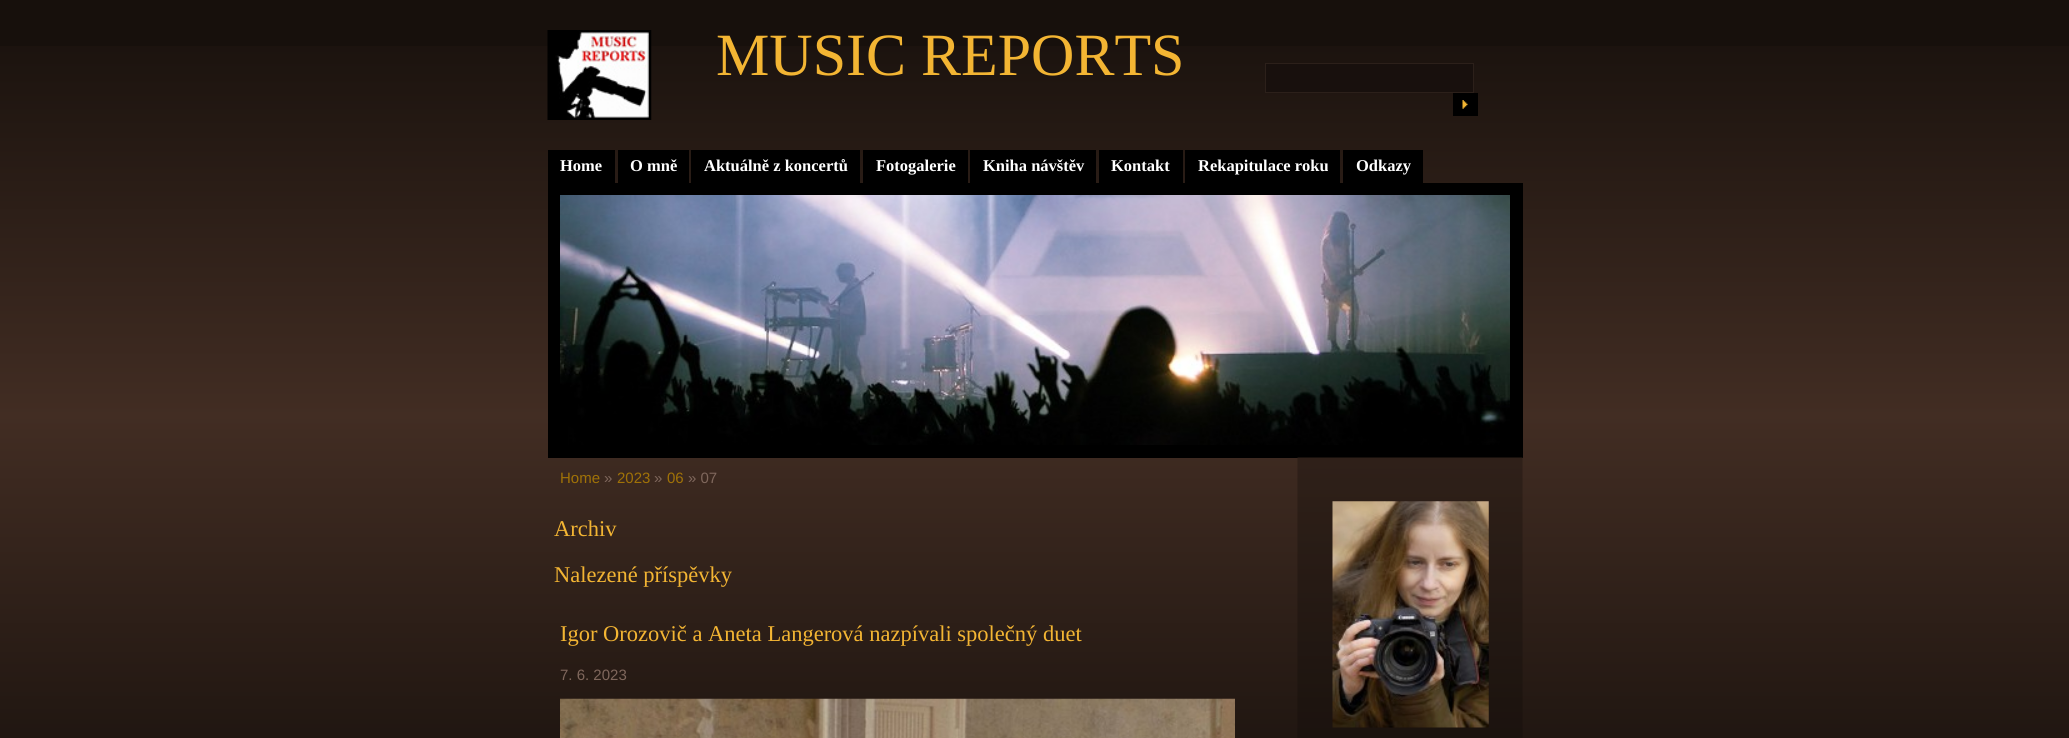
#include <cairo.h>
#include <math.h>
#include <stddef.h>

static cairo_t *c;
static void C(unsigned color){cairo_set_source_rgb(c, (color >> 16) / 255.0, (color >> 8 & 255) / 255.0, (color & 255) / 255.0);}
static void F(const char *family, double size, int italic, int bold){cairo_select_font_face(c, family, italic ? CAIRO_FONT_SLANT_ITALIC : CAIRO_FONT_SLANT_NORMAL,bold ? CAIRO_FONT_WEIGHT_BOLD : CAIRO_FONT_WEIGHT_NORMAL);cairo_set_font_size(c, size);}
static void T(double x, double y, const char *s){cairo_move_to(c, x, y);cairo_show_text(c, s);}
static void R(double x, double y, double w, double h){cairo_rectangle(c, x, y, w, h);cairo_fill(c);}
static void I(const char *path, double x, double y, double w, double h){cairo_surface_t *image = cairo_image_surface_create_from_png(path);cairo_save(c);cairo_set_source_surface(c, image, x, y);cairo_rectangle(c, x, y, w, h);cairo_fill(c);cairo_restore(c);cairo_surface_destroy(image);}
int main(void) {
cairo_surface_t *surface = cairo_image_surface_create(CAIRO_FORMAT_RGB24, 2069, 738);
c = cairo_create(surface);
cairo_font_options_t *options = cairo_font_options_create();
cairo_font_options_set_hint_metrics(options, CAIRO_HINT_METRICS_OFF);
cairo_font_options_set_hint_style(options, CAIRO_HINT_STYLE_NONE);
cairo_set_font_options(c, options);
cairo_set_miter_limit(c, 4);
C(0x17100c);
cairo_paint(c);
I("1.png",0,46,2069,692);
C(0x000000);
R(548,183,975,275);
I("2.png",560,195,950,250);
I("3.png",547,30,105,90);
F("Liberation Serif",60,0,0);
C(0xf3b533);
T(716,75,"MUSIC REPORTS");
I("4.png",1297,457,226,281);
C(0x18100d);
cairo_rectangle(c,1265.5,63.5,208,29);
cairo_fill_preserve(c);
C(0x2c201a);
cairo_set_line_width(c,1);
cairo_stroke(c);
C(0x000000);
R(1453,93,25,23);
I("5.png",1462,100,6,9);
I("6.png",1332,501,157,227);
R(548,150,67,33);
F("Liberation Serif",16.5,0,1);
C(0xffffff);
T(560,171,"Home");
C(0x000000);
R(618,150,71,33);
C(0xffffff);
T(630,171,"O mně");
C(0x000000);
R(691,150,169,33);
C(0xffffff);
T(704,171,"Aktuálně z koncertů");
C(0x000000);
R(863,150,105,33);
C(0xffffff);
T(876,171,"Fotogalerie");
C(0x000000);
R(970,150,126,33);
C(0xffffff);
T(983,171,"Kniha návštěv");
C(0x000000);
R(1099,150,84,33);
C(0xffffff);
T(1111,171,"Kontakt");
C(0x000000);
R(1185,150,155,33);
C(0xffffff);
T(1198,171,"Rekapitulace roku");
C(0x000000);
R(1343,150,80,33);
C(0xffffff);
T(1356,171,"Odkazy");
F("Liberation Sans",15,0,0);
C(0xa07207);
T(560,483,"Home");
C(0x7f675c);
T(604,483,"»");
C(0xa07207);
T(617,483,"2023");
C(0x7f675c);
T(654,483,"»");
C(0xa07207);
T(667,483,"06");
C(0x7f675c);
T(688,483,"» 07");
F("Liberation Serif",22.5,0,0);
C(0xf3b533);
T(554,536,"Archiv");
T(554,582,"Nalezené příspěvky");
T(560,641,"Igor Orozovič a Aneta Langerová nazpívali společný duet");
F("Liberation Sans",15,0,0);
C(0x7f675c);
T(560,680,"7. 6. 2023");
I("7.png",560,698,675,40);
cairo_surface_write_to_png(surface, "o.png");
cairo_font_options_destroy(options);
cairo_destroy(c);
cairo_surface_destroy(surface);
return 0;
}
